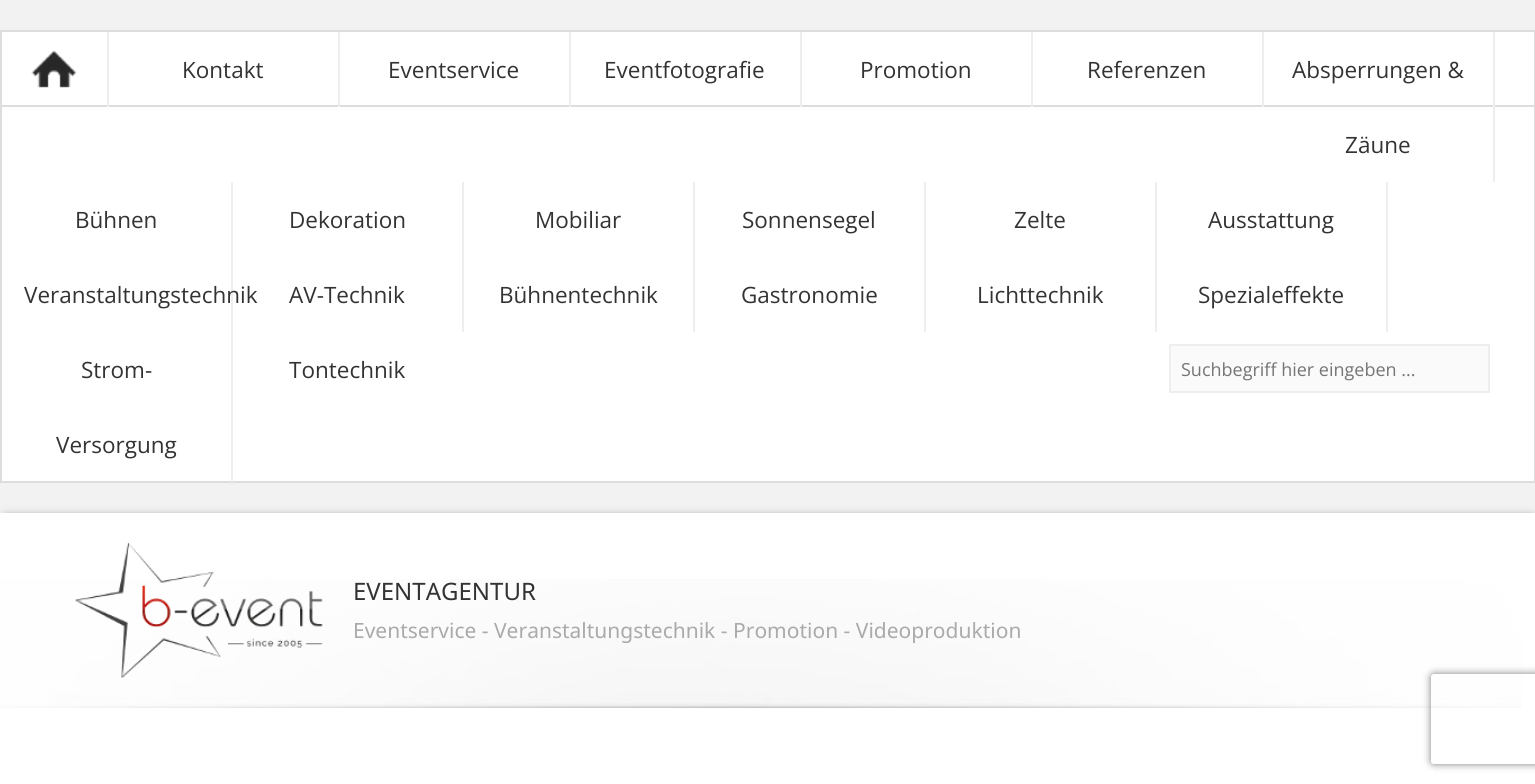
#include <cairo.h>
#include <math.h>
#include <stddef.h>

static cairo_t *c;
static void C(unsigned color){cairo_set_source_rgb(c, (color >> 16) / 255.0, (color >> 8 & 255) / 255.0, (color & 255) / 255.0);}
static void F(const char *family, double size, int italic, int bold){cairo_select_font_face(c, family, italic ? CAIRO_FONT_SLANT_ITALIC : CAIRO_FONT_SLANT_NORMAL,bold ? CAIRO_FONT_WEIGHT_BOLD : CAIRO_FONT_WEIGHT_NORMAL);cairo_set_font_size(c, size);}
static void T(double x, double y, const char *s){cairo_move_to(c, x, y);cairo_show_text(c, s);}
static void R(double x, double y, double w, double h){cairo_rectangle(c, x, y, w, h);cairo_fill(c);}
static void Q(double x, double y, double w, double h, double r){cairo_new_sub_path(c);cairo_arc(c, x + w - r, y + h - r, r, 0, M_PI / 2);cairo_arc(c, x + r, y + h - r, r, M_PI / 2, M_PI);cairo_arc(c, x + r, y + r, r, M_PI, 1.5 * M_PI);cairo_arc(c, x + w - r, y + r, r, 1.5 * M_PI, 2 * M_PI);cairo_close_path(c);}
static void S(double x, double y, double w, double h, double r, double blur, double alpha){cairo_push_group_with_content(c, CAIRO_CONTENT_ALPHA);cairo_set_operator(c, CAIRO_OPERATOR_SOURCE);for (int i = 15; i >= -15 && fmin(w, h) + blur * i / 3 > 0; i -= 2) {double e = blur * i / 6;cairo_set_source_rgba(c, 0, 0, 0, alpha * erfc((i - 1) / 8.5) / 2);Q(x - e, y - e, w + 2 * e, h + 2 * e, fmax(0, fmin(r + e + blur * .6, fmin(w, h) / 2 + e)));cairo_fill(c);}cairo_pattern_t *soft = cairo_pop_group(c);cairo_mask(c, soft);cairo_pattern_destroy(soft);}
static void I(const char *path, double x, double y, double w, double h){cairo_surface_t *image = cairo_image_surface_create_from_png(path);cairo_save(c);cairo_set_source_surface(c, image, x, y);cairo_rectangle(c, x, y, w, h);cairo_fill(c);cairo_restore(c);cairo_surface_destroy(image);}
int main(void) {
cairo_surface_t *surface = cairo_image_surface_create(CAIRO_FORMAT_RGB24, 1535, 784);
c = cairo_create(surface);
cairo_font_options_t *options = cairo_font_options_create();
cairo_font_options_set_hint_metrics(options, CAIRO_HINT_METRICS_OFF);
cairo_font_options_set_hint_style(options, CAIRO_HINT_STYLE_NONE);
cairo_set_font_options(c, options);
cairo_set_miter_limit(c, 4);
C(0xf2f2f2);
cairo_paint(c);
C(0xffffff);
cairo_rectangle(c,1,31,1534,451);
cairo_fill_preserve(c);
C(0xdddddd);
cairo_stroke(c);
R(2,105,1533,2);
C(0xeeeeee);
R(107,32,2,75);
I("1.png",31,50,46,38);
R(338,32,2,75);
F("Open Sans",22.5,0,0);
C(0x333333);
T(182,78,"Kontakt");
C(0xeeeeee);
R(569,32,2,75);
C(0x333333);
T(388,78,"Eventservice");
C(0xeeeeee);
R(800,32,2,75);
C(0x333333);
T(604,78,"Eventfotografie");
C(0xeeeeee);
R(1031,32,2,75);
C(0x333333);
T(860,78,"Promotion");
C(0xeeeeee);
R(1262,32,2,75);
C(0x333333);
T(1087,78,"Referenzen");
C(0xeeeeee);
R(1493,32,2,150);
C(0x333333);
T(1292,78,"Absperrungen &");
T(1345,153,"Zäune");
C(0xeeeeee);
R(231,182,2,300);
C(0x333333);
T(75,228,"Bühnen");
C(0xeeeeee);
R(462,182,2,150);
C(0x333333);
T(289,228,"Dekoration");
C(0xeeeeee);
R(693,182,2,150);
C(0x333333);
T(535,228,"Mobiliar");
C(0xeeeeee);
R(924,182,2,150);
C(0x333333);
T(742,228,"Sonnensegel");
C(0xeeeeee);
R(1155,182,2,150);
C(0x333333);
T(1014,228,"Zelte");
C(0xeeeeee);
R(1386,182,2,150);
C(0x333333);
T(1208,228,"Ausstattung");
T(24,303,"Veranstaltungstechnik");
T(289,303,"AV-Technik");
T(499,303,"Bühnentechnik");
T(741,303,"Gastronomie");
T(977,303,"Lichttechnik");
T(1198,303,"Spezialeffekte");
T(81,378,"Strom-");
T(56,453,"Versorgung");
T(289,378,"Tontechnik");
C(0xfafafa);
cairo_rectangle(c,1170,345,319,47);
cairo_fill_preserve(c);
C(0xeeeeee);
cairo_stroke(c);
F("Open Sans",18,0,0);
C(0x757575);
T(1181,376,"Suchbegriff hier eingeben ...");
C(0x535353);
S(5,518,1527,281,0,5,1);
C(0xffffff);
R(0,513,1535,271);
I("2.png",0,579,1522,129);
I("3.png",75,543,248,135);
F("Noto Sans",24,0,0);
C(0x333333);
T(353,600,"EVENTAGENTUR");
F("Noto Sans",21,0,0);
C(0xaaaaaa);
T(353,638,"Eventservice - Veranstaltungstechnik - Promotion - Videoproduktion");
cairo_save(c);
cairo_set_fill_rule(c,CAIRO_FILL_RULE_EVEN_ODD);
cairo_new_path(c);
cairo_move_to(c,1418,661);
cairo_line_to(c,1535,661);
cairo_line_to(c,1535,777);
cairo_line_to(c,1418,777);
cairo_close_path(c);
cairo_move_to(c,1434,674);
cairo_line_to(c,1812,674);
cairo_curve_to(c,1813.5,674,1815,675.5,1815,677);
cairo_line_to(c,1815,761);
cairo_curve_to(c,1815,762.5,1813.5,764,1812,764);
cairo_line_to(c,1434,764);
cairo_curve_to(c,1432.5,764,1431,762.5,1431,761);
cairo_line_to(c,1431,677);
cairo_curve_to(c,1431,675.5,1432.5,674,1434,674);
cairo_close_path(c);
cairo_clip(c);
C(0x808080);
S(1431,674,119,90,3,4,1);
cairo_restore(c);
cairo_surface_write_to_png(surface, "o.png");
cairo_font_options_destroy(options);
cairo_destroy(c);
cairo_surface_destroy(surface);
return 0;
}
